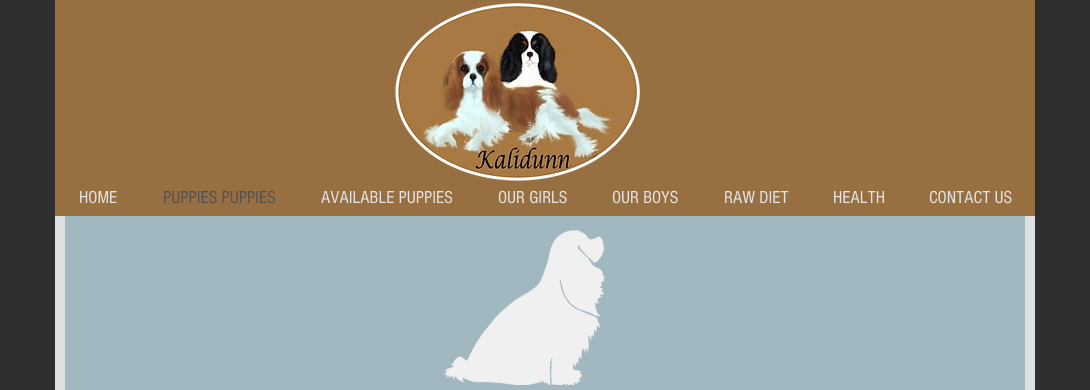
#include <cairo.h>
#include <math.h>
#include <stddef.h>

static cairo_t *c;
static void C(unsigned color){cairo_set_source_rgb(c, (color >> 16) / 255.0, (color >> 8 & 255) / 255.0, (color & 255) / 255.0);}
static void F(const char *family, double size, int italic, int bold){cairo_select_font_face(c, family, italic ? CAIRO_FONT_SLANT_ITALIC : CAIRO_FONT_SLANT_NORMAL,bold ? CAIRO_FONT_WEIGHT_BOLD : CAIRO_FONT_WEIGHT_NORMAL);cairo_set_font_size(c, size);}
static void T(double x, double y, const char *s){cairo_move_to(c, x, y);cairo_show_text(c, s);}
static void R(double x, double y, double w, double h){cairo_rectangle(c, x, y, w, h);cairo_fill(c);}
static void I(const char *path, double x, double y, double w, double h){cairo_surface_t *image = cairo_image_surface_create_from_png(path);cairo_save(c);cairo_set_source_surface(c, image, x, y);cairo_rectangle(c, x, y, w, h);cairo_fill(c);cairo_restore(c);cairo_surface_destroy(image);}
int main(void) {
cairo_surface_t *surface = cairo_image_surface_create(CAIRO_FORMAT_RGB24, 1090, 390);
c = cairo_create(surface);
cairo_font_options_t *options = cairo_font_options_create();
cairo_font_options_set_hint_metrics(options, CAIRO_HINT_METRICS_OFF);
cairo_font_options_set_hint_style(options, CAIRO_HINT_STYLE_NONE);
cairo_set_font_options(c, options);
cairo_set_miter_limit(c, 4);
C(0x2f2e2e);
cairo_paint(c);
C(0x986f40);
R(55,0,980,216);
I("1.png",395,3,245,178);
F("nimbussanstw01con",18,0,0);
C(0xe4e4e4);
T(79,203,"HOME");
C(0x535151);
T(163,203,"PUPPIES PUPPIES");
C(0xe4e4e4);
T(321,203,"AVAILABLE PUPPIES");
T(498,203,"OUR GIRLS");
T(612,203,"OUR BOYS");
T(724,203,"RAW DIET");
T(833,203,"HEALTH");
T(929,203,"CONTACT US");
C(0xe0e0e0);
R(55,216,980,174);
C(0xa1b8c0);
R(65,216,960,174);
I("2.png",443,230,162,155);
cairo_surface_write_to_png(surface, "o.png");
cairo_font_options_destroy(options);
cairo_destroy(c);
cairo_surface_destroy(surface);
return 0;
}
